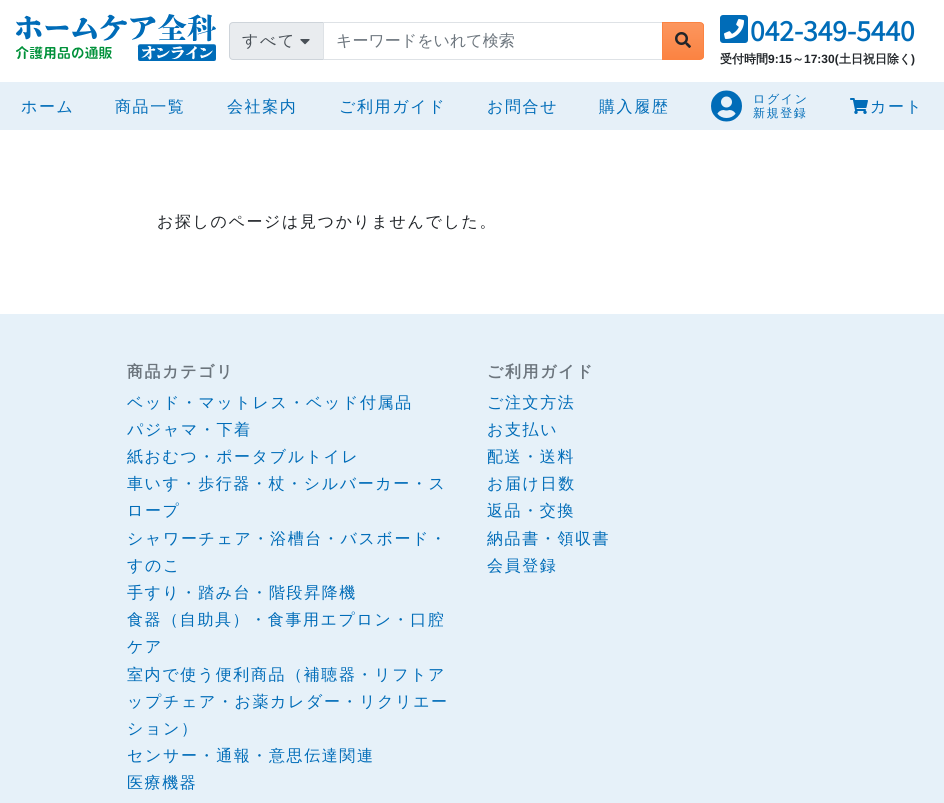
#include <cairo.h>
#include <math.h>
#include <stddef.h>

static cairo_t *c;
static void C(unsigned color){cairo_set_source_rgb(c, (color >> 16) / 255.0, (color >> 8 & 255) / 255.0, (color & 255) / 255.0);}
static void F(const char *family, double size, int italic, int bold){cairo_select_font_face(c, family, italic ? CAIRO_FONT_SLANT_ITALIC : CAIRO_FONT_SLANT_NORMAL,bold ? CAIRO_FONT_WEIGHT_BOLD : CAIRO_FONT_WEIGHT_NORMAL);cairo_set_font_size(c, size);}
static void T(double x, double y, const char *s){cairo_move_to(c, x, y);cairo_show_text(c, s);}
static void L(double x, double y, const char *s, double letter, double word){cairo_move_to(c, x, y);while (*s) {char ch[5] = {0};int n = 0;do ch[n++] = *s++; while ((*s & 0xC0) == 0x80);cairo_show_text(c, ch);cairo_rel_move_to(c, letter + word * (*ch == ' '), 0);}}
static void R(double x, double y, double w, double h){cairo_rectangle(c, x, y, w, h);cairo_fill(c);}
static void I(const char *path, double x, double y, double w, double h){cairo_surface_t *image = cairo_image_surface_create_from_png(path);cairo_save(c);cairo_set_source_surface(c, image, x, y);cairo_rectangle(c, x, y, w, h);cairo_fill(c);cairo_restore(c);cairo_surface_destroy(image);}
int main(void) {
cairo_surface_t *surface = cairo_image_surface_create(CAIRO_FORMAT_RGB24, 944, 803);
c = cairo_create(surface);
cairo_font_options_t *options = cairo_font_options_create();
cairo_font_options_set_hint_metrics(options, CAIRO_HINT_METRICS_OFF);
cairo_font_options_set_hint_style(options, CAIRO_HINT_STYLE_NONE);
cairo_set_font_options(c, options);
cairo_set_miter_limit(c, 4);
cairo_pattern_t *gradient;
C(0xffffff);
cairo_paint(c);
I("1.png",16,14,200,47);
C(0xe9ecef);
cairo_new_path(c);
cairo_move_to(c,233,22.5);
cairo_line_to(c,323.5,22.5);
cairo_line_to(c,323.5,59.5);
cairo_line_to(c,233,59.5);
cairo_curve_to(c,231,59.5,229.5,58,229.5,56);
cairo_line_to(c,229.5,26);
cairo_curve_to(c,229.5,24,231,22.5,233,22.5);
cairo_close_path(c);
cairo_fill_preserve(c);
C(0xced4da);
cairo_set_line_width(c,1);
cairo_stroke(c);
F("WenQuanYi Zen Hei Medium",16,0,0);
C(0x495057);
L(242,46,"すべて",1.6,0);
I("2.png",300,39,10,6);
cairo_rectangle(c,323.5,22.5,339,37);
C(0xdee2e6);
cairo_stroke(c);
C(0x6c757d);
T(336,46,"キーワードをいれて検索");
cairo_save(c);
cairo_new_path(c);
cairo_move_to(c,662,22);
cairo_line_to(c,700,22);
cairo_curve_to(c,702,22,704,24,704,26);
cairo_line_to(c,704,56);
cairo_curve_to(c,704,58,702,60,700,60);
cairo_line_to(c,662,60);
cairo_close_path(c);
cairo_clip(c);
gradient = cairo_pattern_create_linear(683,23,683,59);
cairo_pattern_add_color_stop_rgba(gradient,0,0.988,0.588,0.369,1);
cairo_pattern_add_color_stop_rgba(gradient,1,0.984,0.514,0.259,1);
cairo_set_source(c,gradient);
cairo_pattern_destroy(gradient);
R(663,23,41,36);
cairo_restore(c);
cairo_new_path(c);
cairo_move_to(c,662.5,22.5);
cairo_line_to(c,700,22.5);
cairo_curve_to(c,702,22.5,703.5,24,703.5,26);
cairo_line_to(c,703.5,56);
cairo_curve_to(c,703.5,58,702,59.5,700,59.5);
cairo_line_to(c,662.5,59.5);
cairo_close_path(c);
C(0xfb8342);
cairo_stroke(c);
I("3.png",675,32,16,16);
I("4.png",720,15,28,28);
F("Assistant",29.75,0,1);
C(0x006cb8);
T(750,41,"042-349-5440");
F("WenQuanYi Zen Hei",12,0,1);
C(0x212529);
T(720,63,"受付時間");
F("Liberation Sans",12,0,1);
T(768,63,"9:15");
F("WenQuanYi Zen Hei",12,0,1);
T(792,63,"～");
F("Liberation Sans",12,0,1);
T(804,63,"17:30(");
F("WenQuanYi Zen Hei",12,0,1);
T(839,63,"土日祝日除く");
F("Liberation Sans",12,0,1);
T(911,63,")");
C(0xe6f0f8);
R(0,82,944,48);
F("WenQuanYi Zen Hei Medium",16,0,0);
C(0x006cb8);
L(21,112,"ホーム",1.6,0);
L(115,112,"商品一覧",1.6,0);
L(227,112,"会社案内",1.6,0);
L(339,112,"ご利用ガイド",1.6,0);
L(487,112,"お問合せ",1.6,0);
L(599,112,"購入履歴",1.6,0);
I("5.png",711,90,31,32);
F("WenQuanYi Zen Hei Medium",12,0,0);
L(753,103,"ログイン",1.6,0);
L(753,117,"新規登録",1.6,0);
I("6.png",850,98,18,16);
F("WenQuanYi Zen Hei Medium",16,0,0);
L(870,112,"カート",1.6,0);
C(0x212529);
L(157,227,"お探しのページは見つかりませんでした。",1.6,0);
C(0xe6f1f9);
R(0,314,944,489);
F("WenQuanYi Zen Hei",16,0,1);
C(0x6c757d);
L(127,377,"商品カテゴリ",1.6,0);
F("WenQuanYi Zen Hei Medium",16,0,0);
C(0x006cb8);
L(127,408,"ベッド・マットレス・ベッド付属品",1.6,0);
L(127,435,"パジャマ・下着",1.6,0);
L(127,462,"紙おむつ・ポータブルトイレ",1.6,0);
L(127,489,"車いす・歩行器・杖・シルバーカー・ス",1.6,0);
L(127,516,"ロープ",1.6,0);
L(127,544,"シャワーチェア・浴槽台・バスボード・",1.6,0);
L(127,571,"すのこ",1.6,0);
L(127,598,"手すり・踏み台・階段昇降機",1.6,0);
L(127,625,"食器（自助具）・食事用エプロン・口腔",1.6,0);
L(127,652,"ケア",1.6,0);
L(127,680,"室内で使う便利商品（補聴器・リフトア",1.6,0);
L(127,707,"ップチェア・お薬カレダー・リクリエー",1.6,0);
L(127,734,"ション）",1.6,0);
L(127,761,"センサー・通報・意思伝達関連",1.6,0);
L(127,788,"医療機器",1.6,0);
F("WenQuanYi Zen Hei",16,0,1);
C(0x6c757d);
L(487,377,"ご利用ガイド",1.6,0);
F("WenQuanYi Zen Hei Medium",16,0,0);
C(0x006cb8);
L(487,408,"ご注文方法",1.6,0);
L(487,435,"お支払い",1.6,0);
L(487,462,"配送・送料",1.6,0);
L(487,489,"お届け日数",1.6,0);
L(487,516,"返品・交換",1.6,0);
L(487,544,"納品書・領収書",1.6,0);
L(487,571,"会員登録",1.6,0);
cairo_surface_write_to_png(surface, "o.png");
cairo_font_options_destroy(options);
cairo_destroy(c);
cairo_surface_destroy(surface);
return 0;
}
